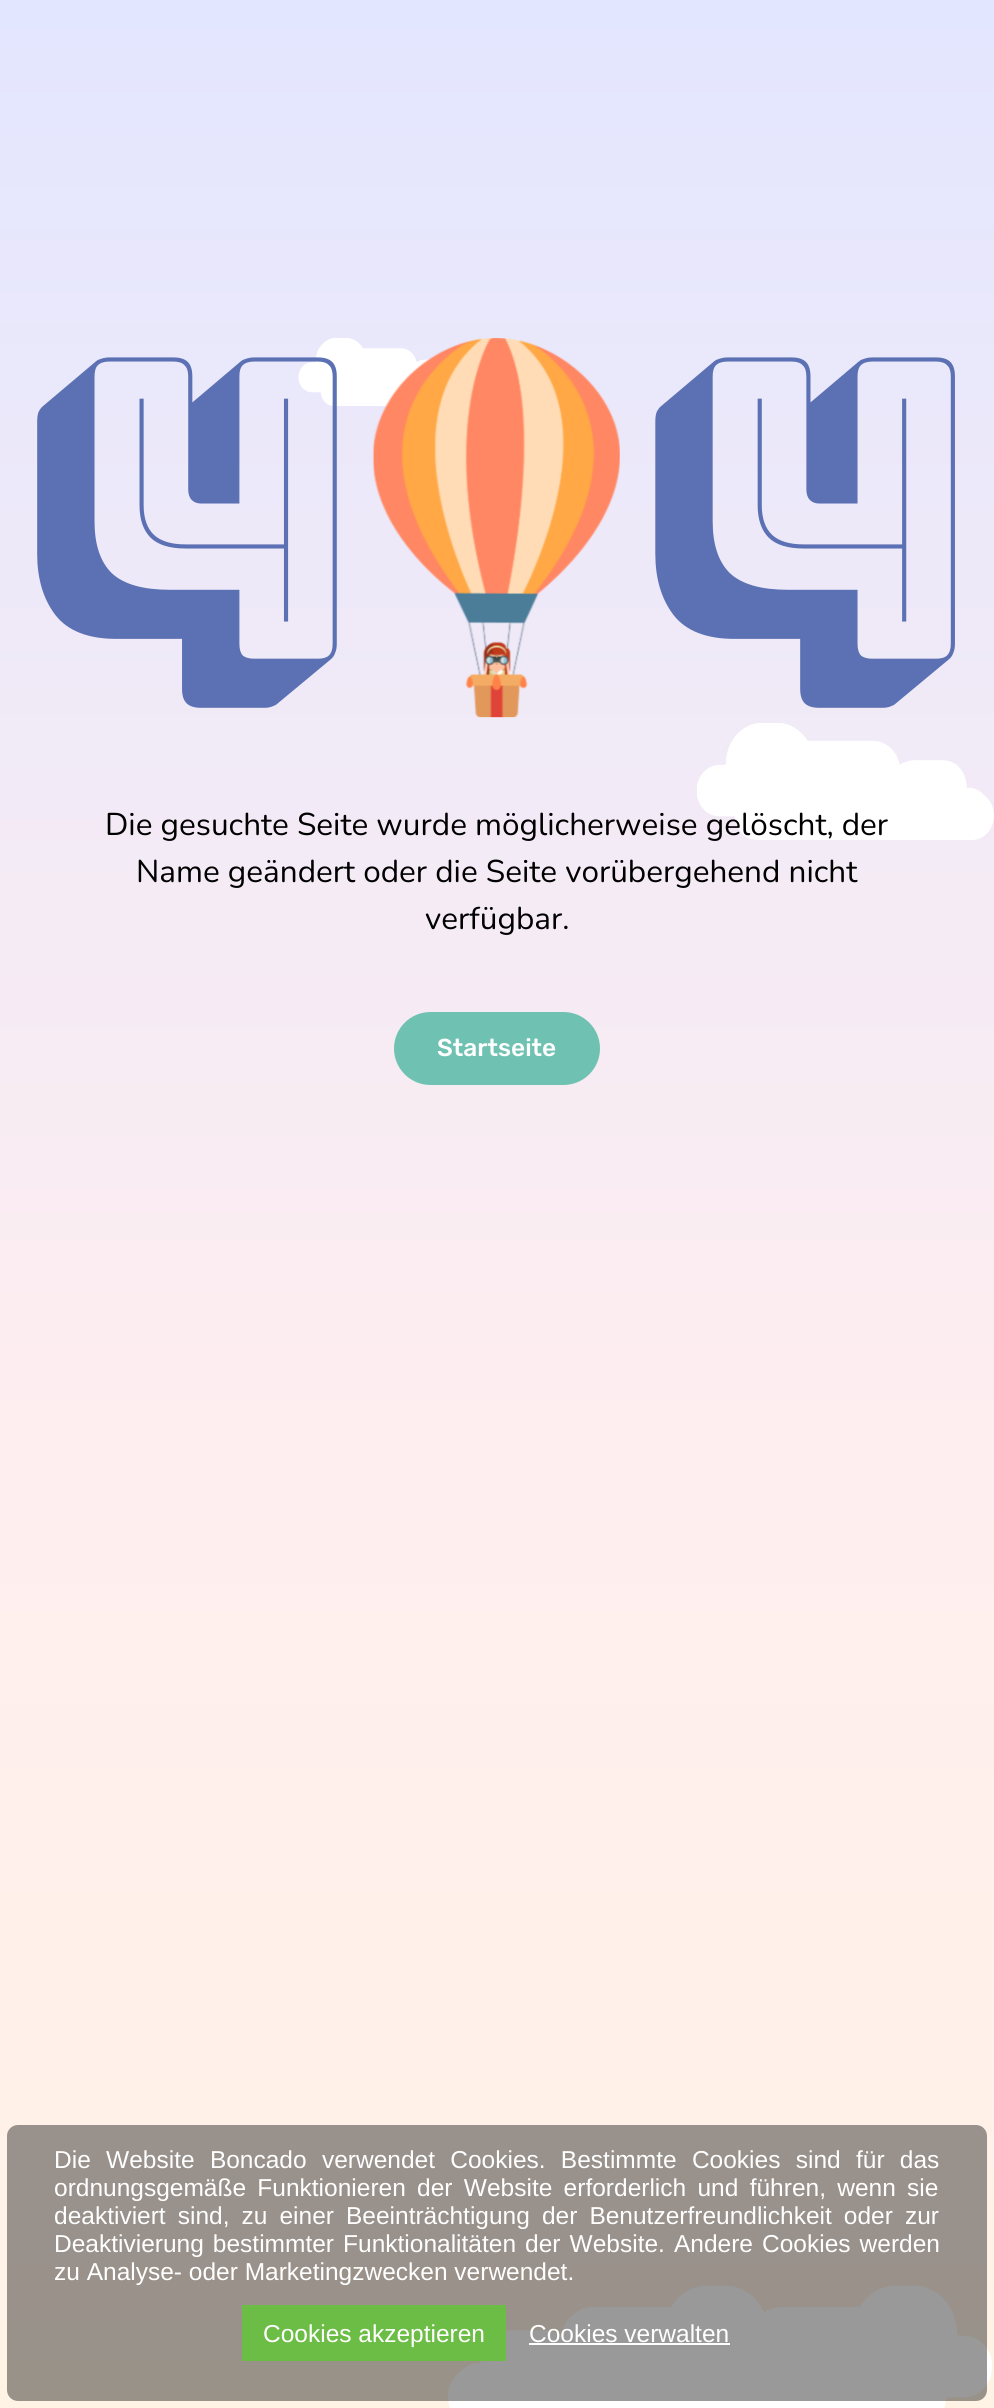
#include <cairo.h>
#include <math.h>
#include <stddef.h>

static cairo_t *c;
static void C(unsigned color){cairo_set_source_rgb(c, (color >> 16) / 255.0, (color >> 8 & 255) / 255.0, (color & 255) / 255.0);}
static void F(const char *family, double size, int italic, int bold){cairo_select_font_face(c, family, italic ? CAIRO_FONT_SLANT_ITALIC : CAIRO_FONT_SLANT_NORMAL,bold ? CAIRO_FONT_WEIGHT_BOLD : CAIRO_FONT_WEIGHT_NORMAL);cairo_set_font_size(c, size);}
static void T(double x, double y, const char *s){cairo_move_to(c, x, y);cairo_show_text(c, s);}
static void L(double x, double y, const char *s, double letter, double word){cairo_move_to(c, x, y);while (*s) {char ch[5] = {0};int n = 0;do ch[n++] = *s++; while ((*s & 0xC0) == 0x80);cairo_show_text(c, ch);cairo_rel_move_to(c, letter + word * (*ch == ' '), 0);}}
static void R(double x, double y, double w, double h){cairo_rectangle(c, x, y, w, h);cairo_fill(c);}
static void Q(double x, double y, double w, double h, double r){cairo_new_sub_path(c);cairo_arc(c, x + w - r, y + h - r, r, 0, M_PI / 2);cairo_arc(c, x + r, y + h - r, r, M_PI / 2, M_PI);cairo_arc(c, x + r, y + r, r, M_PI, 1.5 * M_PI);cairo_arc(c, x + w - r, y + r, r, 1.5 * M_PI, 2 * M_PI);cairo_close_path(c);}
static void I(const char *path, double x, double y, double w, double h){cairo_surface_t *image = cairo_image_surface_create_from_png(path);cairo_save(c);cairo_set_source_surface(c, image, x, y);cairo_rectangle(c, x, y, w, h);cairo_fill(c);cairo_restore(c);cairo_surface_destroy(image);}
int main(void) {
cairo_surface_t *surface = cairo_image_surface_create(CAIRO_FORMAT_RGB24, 994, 2408);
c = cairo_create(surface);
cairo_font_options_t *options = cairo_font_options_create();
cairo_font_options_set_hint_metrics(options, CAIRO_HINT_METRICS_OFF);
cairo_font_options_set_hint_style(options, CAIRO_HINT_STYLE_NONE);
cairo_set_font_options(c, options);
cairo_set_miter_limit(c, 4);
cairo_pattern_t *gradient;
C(0xffffff);
cairo_paint(c);
gradient = cairo_pattern_create_linear(497,0,497,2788);
cairo_pattern_add_color_stop_rgba(gradient,0,0.89,0.902,1,1);
cairo_pattern_add_color_stop_rgba(gradient,.53,1,0.933,0.937,1);
cairo_pattern_add_color_stop_rgba(gradient,1,1,0.961,0.882,1);
cairo_set_source(c,gradient);
cairo_pattern_destroy(gradient);
R(0,0,994,2408);
I("1.png",298,338,134,68);
I("2.png",697,723,297,117);
I("3.png",448,2286,544,122);
I("5.png",37,357,918,351);
I("4.png",372,338,248,380);
F("Nunito",31.5,0,0);
C(0x000000);
T(105,835,"Die gesuchte Seite wurde möglicherweise gelöscht, der");
T(136,882,"Name geändert oder die Seite vorübergehend nicht");
T(425,929,"verfügbar.");
C(0x6fc2b1);
Q(395,1013,204,71,35.5);
cairo_fill_preserve(c);
cairo_stroke(c);
F("Rubik Medium",24.5,0,0);
C(0xffffff);
T(437,1056,"Startseite");
cairo_set_source_rgba(c,0,0,0,0.4);
Q(7,2125,980,276,11);
cairo_fill(c);
F("Liberation Sans",24.5,0,0);
C(0xffffff);
L(54,2168,"Die Website Boncado verwendet Cookies. Bestimmte Cookies sind für das",0,8.5);
L(54,2196,"ordnungsgemäße Funktionieren der Website erforderlich und führen, wenn sie",0,4.5);
L(54,2224,"deaktiviert sind, zu einer Beeinträchtigung der Benutzerfreundlichkeit oder zur",0,5.25);
L(54,2252,"Deaktivierung bestimmter Funktionalitäten der Website. Andere Cookies werden",0,2.25);
T(54,2280,"zu Analyse- oder Marketingzwecken verwendet.");
C(0x6cbd45);
R(242,2305,264,56);
C(0xffffff);
T(263,2342,"Cookies akzeptieren");
T(529,2342,"Cookies verwalten");
R(529,2343,201,2);
cairo_surface_write_to_png(surface, "o.png");
cairo_font_options_destroy(options);
cairo_destroy(c);
cairo_surface_destroy(surface);
return 0;
}
